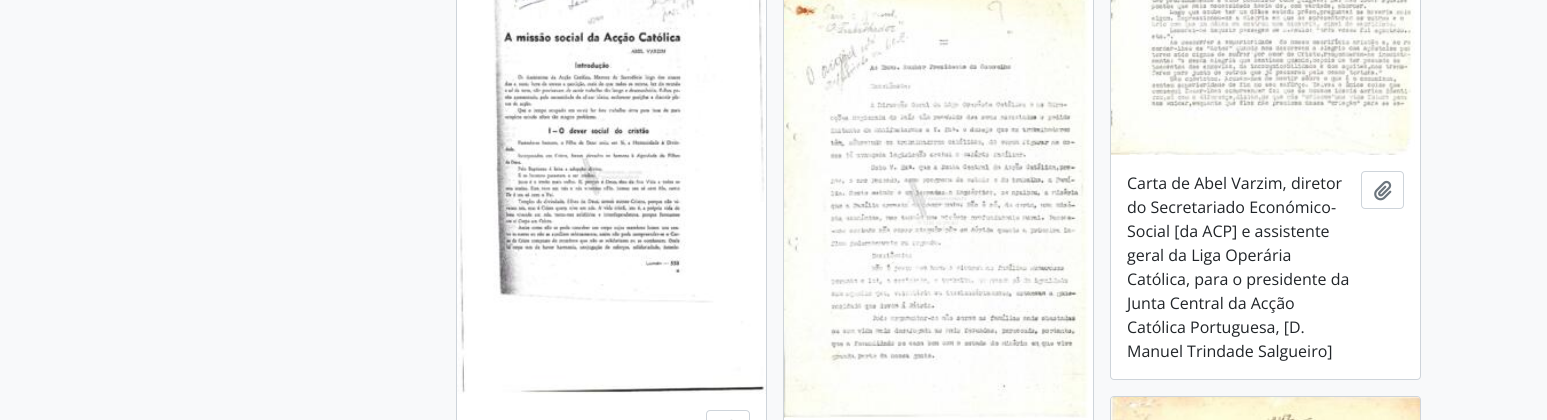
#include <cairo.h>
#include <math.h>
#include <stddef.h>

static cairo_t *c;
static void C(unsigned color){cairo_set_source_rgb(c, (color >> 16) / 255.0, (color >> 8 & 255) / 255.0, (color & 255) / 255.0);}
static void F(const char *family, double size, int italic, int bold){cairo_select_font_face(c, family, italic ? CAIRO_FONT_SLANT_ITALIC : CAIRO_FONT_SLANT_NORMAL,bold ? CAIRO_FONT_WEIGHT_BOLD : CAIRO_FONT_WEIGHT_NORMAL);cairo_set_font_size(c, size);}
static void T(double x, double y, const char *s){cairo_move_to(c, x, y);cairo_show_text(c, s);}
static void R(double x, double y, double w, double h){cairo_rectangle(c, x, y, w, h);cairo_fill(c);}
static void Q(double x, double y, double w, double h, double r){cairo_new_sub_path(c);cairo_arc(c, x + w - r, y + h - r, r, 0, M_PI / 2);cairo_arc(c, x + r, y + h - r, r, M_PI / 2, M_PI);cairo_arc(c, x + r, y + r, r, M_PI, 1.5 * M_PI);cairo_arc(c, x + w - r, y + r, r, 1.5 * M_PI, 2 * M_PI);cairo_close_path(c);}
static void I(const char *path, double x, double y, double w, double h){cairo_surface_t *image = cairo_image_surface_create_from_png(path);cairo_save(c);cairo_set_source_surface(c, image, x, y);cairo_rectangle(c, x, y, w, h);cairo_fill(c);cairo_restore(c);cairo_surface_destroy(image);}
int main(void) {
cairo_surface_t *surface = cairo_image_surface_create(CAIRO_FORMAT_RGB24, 1547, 420);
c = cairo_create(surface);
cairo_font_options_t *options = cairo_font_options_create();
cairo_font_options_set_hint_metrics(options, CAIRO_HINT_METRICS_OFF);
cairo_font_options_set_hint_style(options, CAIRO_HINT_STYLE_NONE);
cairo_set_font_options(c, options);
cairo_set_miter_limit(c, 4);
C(0xf8f9fa);
cairo_paint(c);
C(0xffffff);
R(457,394,309,26);
cairo_rectangle(c,456.5,-.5,310,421);
C(0xced4da);
cairo_set_line_width(c,1);
cairo_stroke(c);
I("1.png",457,0,309,394);
Q(706.5,410.5,43,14,3.5);
cairo_stroke(c);
I("2.png",730,419,3,1);
C(0xffffff);
cairo_rectangle(c,783.5,-.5,310,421);
cairo_fill_preserve(c);
C(0xced4da);
cairo_stroke(c);
I("3.png",784,0,305,418);
C(0xffffff);
Q(1110.5,-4.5,310,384,3.5);
cairo_fill_preserve(c);
C(0xced4da);
cairo_stroke(c);
I("4.png",1111,0,304,155);
F("Open Sans",16,0,0);
C(0x212529);
T(1127,189,"Carta de Abel Varzim, diretor");
T(1127,213,"do Secretariado Económico-");
T(1127,237,"Social [da ACP] e assistente");
T(1127,261,"geral da Liga Operária");
T(1127,285,"Católica, para o presidente da");
T(1127,309,"Junta Central da Acção");
T(1127,333,"Católica Portuguesa, [D.");
T(1127,357,"Manuel Trindade Salgueiro]");
Q(1361.5,171.5,42,37,3.5);
C(0xced4da);
cairo_stroke(c);
I("5.png",1374,180,18,21);
Q(1110.5,396.5,310,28,3.5);
cairo_stroke(c);
I("6.png",1111,397,309,23);
cairo_surface_write_to_png(surface, "o.png");
cairo_font_options_destroy(options);
cairo_destroy(c);
cairo_surface_destroy(surface);
return 0;
}
